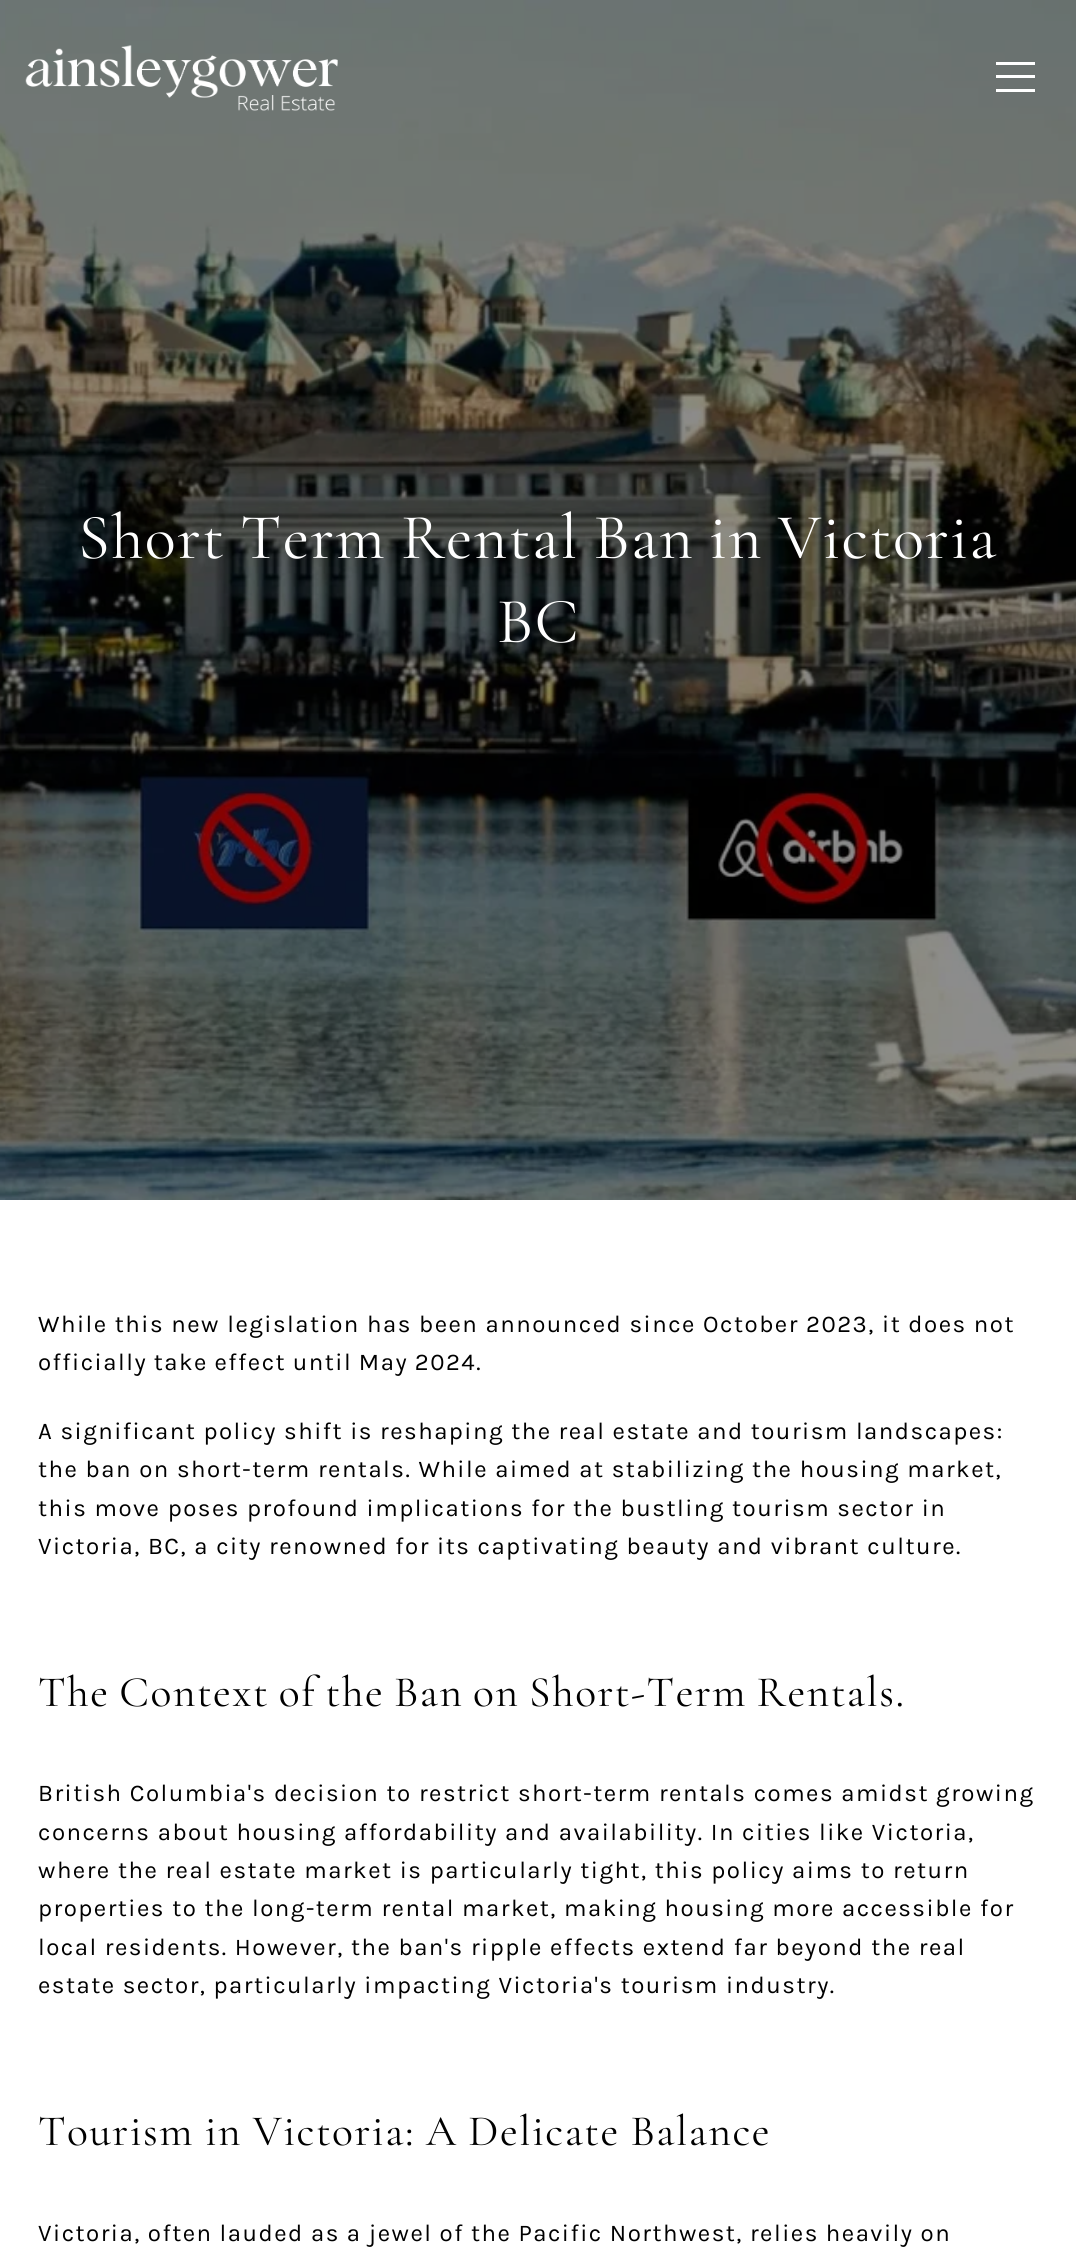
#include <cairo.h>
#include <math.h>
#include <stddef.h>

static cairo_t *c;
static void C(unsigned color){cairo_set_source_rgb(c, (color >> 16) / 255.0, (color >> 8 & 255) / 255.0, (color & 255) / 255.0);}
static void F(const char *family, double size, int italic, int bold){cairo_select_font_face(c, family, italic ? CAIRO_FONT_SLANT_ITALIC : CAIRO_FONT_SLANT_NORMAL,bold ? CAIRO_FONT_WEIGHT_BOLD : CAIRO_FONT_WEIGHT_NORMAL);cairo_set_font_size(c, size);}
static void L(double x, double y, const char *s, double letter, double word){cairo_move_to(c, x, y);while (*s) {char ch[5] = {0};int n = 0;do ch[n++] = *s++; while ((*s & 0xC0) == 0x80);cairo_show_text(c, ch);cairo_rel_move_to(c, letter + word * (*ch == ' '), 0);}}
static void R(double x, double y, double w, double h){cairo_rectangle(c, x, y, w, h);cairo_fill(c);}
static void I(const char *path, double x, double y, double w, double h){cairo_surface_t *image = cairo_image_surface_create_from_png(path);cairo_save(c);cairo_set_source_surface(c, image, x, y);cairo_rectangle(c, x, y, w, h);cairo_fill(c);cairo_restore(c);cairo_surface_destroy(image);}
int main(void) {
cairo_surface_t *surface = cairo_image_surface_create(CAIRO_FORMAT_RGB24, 1076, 2248);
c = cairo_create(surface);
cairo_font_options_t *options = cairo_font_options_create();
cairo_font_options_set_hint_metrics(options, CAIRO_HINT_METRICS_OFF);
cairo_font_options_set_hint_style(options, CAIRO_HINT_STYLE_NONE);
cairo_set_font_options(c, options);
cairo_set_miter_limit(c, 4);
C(0xffffff);
cairo_paint(c);
I("2.png",0,0,1076,1200);
I("1.png",25,45,313,66);
C(0xffffff);
R(996,75,39,3);
R(996,62,39,3);
R(996,89,39,3);
F("Cormorant Garamond",64.5,0,0);
L(78,558,"Short Term Rental Ban in Victoria",1.5,-1.75);
L(497,642,"BC",1.5,0);
F("Karla",24,0,0);
C(0x000000);
L(38,1332,"While this new legislation has been announced since October 2023, it does not",1.5,0);
L(38,1370,"officially take effect until May 2024.",1.5,-.5);
L(38,1439,"A significant policy shift is reshaping the real estate and tourism landscapes:",1.5,-.1);
L(38,1477,"the ban on short-term rentals. While aimed at stabilizing the housing market,",1.5,0);
L(38,1516,"this move poses profound implications for the bustling tourism sector in",1.5,0);
L(38,1554,"Victoria, BC, a city renowned for its captivating beauty and vibrant culture.",1.5,0);
F("Cormorant Garamond",43.5,0,0);
L(38,1706,"The Context of the Ban on Short-Term Rentals.",1.5,-2);
F("Karla",24,0,0);
L(38,1801,"British Columbia's decision to restrict short-term rentals comes amidst growing",1.5,0);
L(38,1840,"concerns about housing affordability and availability. In cities like Victoria,",1.5,0);
L(38,1878,"where the real estate market is particularly tight, this policy aims to return",1.5,0);
L(38,1916,"properties to the long-term rental market, making housing more accessible for",1.5,0);
L(38,1955,"local residents. However, the ban's ripple effects extend far beyond the real",1.5,0);
L(38,1993,"estate sector, particularly impacting Victoria's tourism industry.",1.5,0);
F("Cormorant Garamond",43.5,0,0);
L(38,2145,"Tourism in Victoria: A Delicate Balance",1.5,-1);
F("Karla",24,0,0);
L(38,2241,"Victoria, often lauded as a jewel of the Pacific Northwest, relies heavily on",1.5,-.1);
cairo_surface_write_to_png(surface, "o.png");
cairo_font_options_destroy(options);
cairo_destroy(c);
cairo_surface_destroy(surface);
return 0;
}
